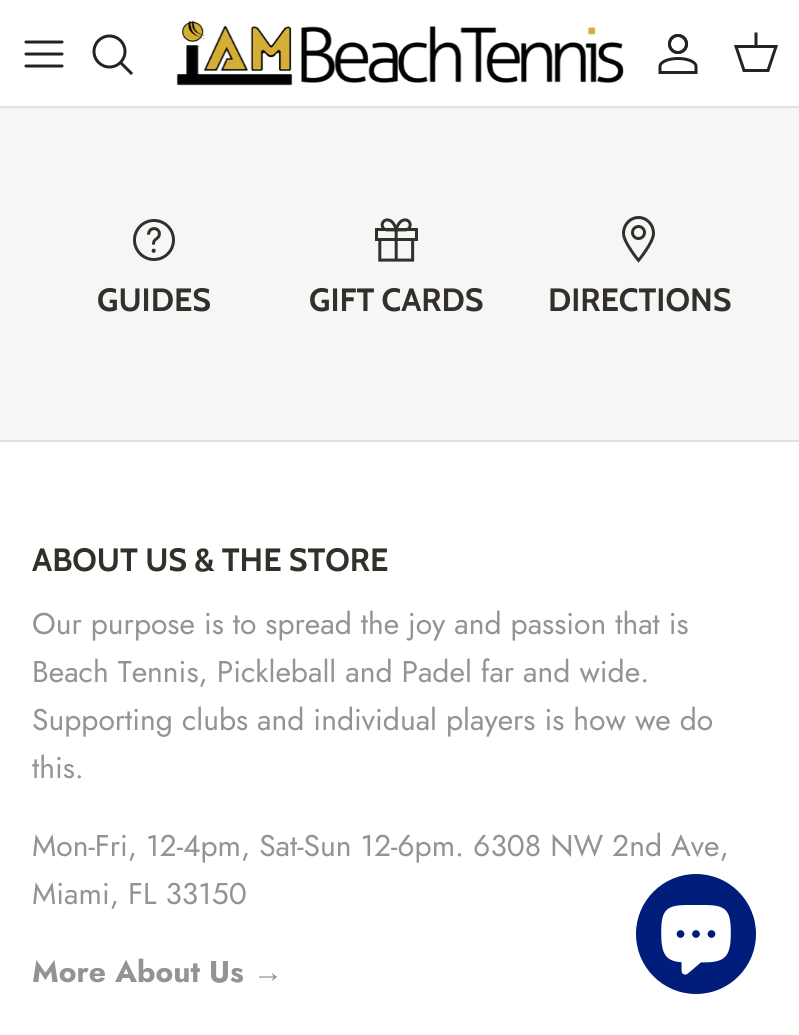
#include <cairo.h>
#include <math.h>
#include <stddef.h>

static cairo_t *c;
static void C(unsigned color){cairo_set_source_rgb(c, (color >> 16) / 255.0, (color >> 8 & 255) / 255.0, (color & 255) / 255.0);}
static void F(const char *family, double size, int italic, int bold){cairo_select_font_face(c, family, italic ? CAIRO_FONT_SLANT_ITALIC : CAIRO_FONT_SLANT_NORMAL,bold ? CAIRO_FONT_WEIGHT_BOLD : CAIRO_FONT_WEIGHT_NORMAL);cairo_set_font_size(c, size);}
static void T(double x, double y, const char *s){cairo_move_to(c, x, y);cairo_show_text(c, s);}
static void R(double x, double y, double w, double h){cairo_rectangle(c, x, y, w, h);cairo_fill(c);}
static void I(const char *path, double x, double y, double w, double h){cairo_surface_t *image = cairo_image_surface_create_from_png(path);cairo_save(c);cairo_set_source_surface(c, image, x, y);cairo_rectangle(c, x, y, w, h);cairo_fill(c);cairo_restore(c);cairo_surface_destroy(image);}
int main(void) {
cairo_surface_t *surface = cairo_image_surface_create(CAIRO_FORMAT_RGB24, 799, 1035);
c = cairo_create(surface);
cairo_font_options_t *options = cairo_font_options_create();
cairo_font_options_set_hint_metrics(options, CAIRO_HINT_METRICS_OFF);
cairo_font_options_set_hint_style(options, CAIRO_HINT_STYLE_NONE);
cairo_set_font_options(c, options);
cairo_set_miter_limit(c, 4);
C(0xffffff);
cairo_paint(c);
C(0xe2e2e2);
R(0,106,799,2);
cairo_new_path(c);
cairo_move_to(c,26,54);
cairo_line_to(c,62,54);
cairo_move_to(c,26,42);
cairo_line_to(c,62,42);
cairo_move_to(c,26,66);
cairo_line_to(c,62,66);
C(0x232323);
cairo_set_line_width(c,3);
cairo_set_line_cap(c,CAIRO_LINE_CAP_ROUND);
cairo_set_line_join(c,CAIRO_LINE_JOIN_ROUND);
cairo_stroke(c);
cairo_arc(c,109.5,51.5,15.5,0,2 * M_PI);
cairo_set_line_cap(c,CAIRO_LINE_CAP_BUTT);
cairo_set_line_join(c,CAIRO_LINE_JOIN_MITER);
cairo_stroke(c);
cairo_new_path(c);
cairo_move_to(c,122,64);
cairo_line_to(c,131,73);
cairo_set_line_cap(c,CAIRO_LINE_CAP_SQUARE);
cairo_stroke(c);
I("1.png",176,20,448,66);
I("2.png",658,34,40,40);
cairo_new_path(c);
cairo_move_to(c,736,46.5);
cairo_line_to(c,776,46.5);
cairo_line_to(c,768,70.5);
cairo_line_to(c,744,70.5);
cairo_close_path(c);
cairo_set_line_cap(c,CAIRO_LINE_CAP_BUTT);
cairo_stroke(c);
cairo_new_path(c);
cairo_move_to(c,756,46);
cairo_line_to(c,756,34);
cairo_set_line_cap(c,CAIRO_LINE_CAP_SQUARE);
cairo_stroke(c);
C(0xf6f6f6);
R(0,108,799,332);
I("3.png",133,219,42,42);
F("Cabin",32.25,0,1);
C(0x333029);
T(97,311,"GUIDES");
I("4.png",375,218,43,44);
T(309,311,"GIFT CARDS");
I("5.png",622,216,33,47);
T(548,311,"DIRECTIONS");
C(0xe0e0e0);
R(0,440,799,2);
C(0x333029);
T(32,571,"ABOUT US & THE STORE");
F("Jost",30,0,0);
C(0x939393);
T(32,634,"Our purpose is to spread the joy and passion that is");
T(32,682,"Beach Tennis, Pickleball and Padel far and wide.");
T(32,730,"Supporting clubs and individual players is how we do");
T(32,778,"this.");
T(32,856,"Mon-Fri, 12-4pm, Sat-Sun 12-6pm. 6308 NW 2nd Ave,");
T(32,904,"Miami, FL 33150");
F("Jost",30,0,1);
T(32,982,"More About Us");
F("Liberation Sans",30,0,1);
T(253,982,"→");
C(0x001d7c);
cairo_new_path(c);
cairo_arc(c,696,934,60,0,2 * M_PI);
cairo_fill(c);
I("6.png",661,905,70,70);
cairo_surface_write_to_png(surface, "o.png");
cairo_font_options_destroy(options);
cairo_destroy(c);
cairo_surface_destroy(surface);
return 0;
}
